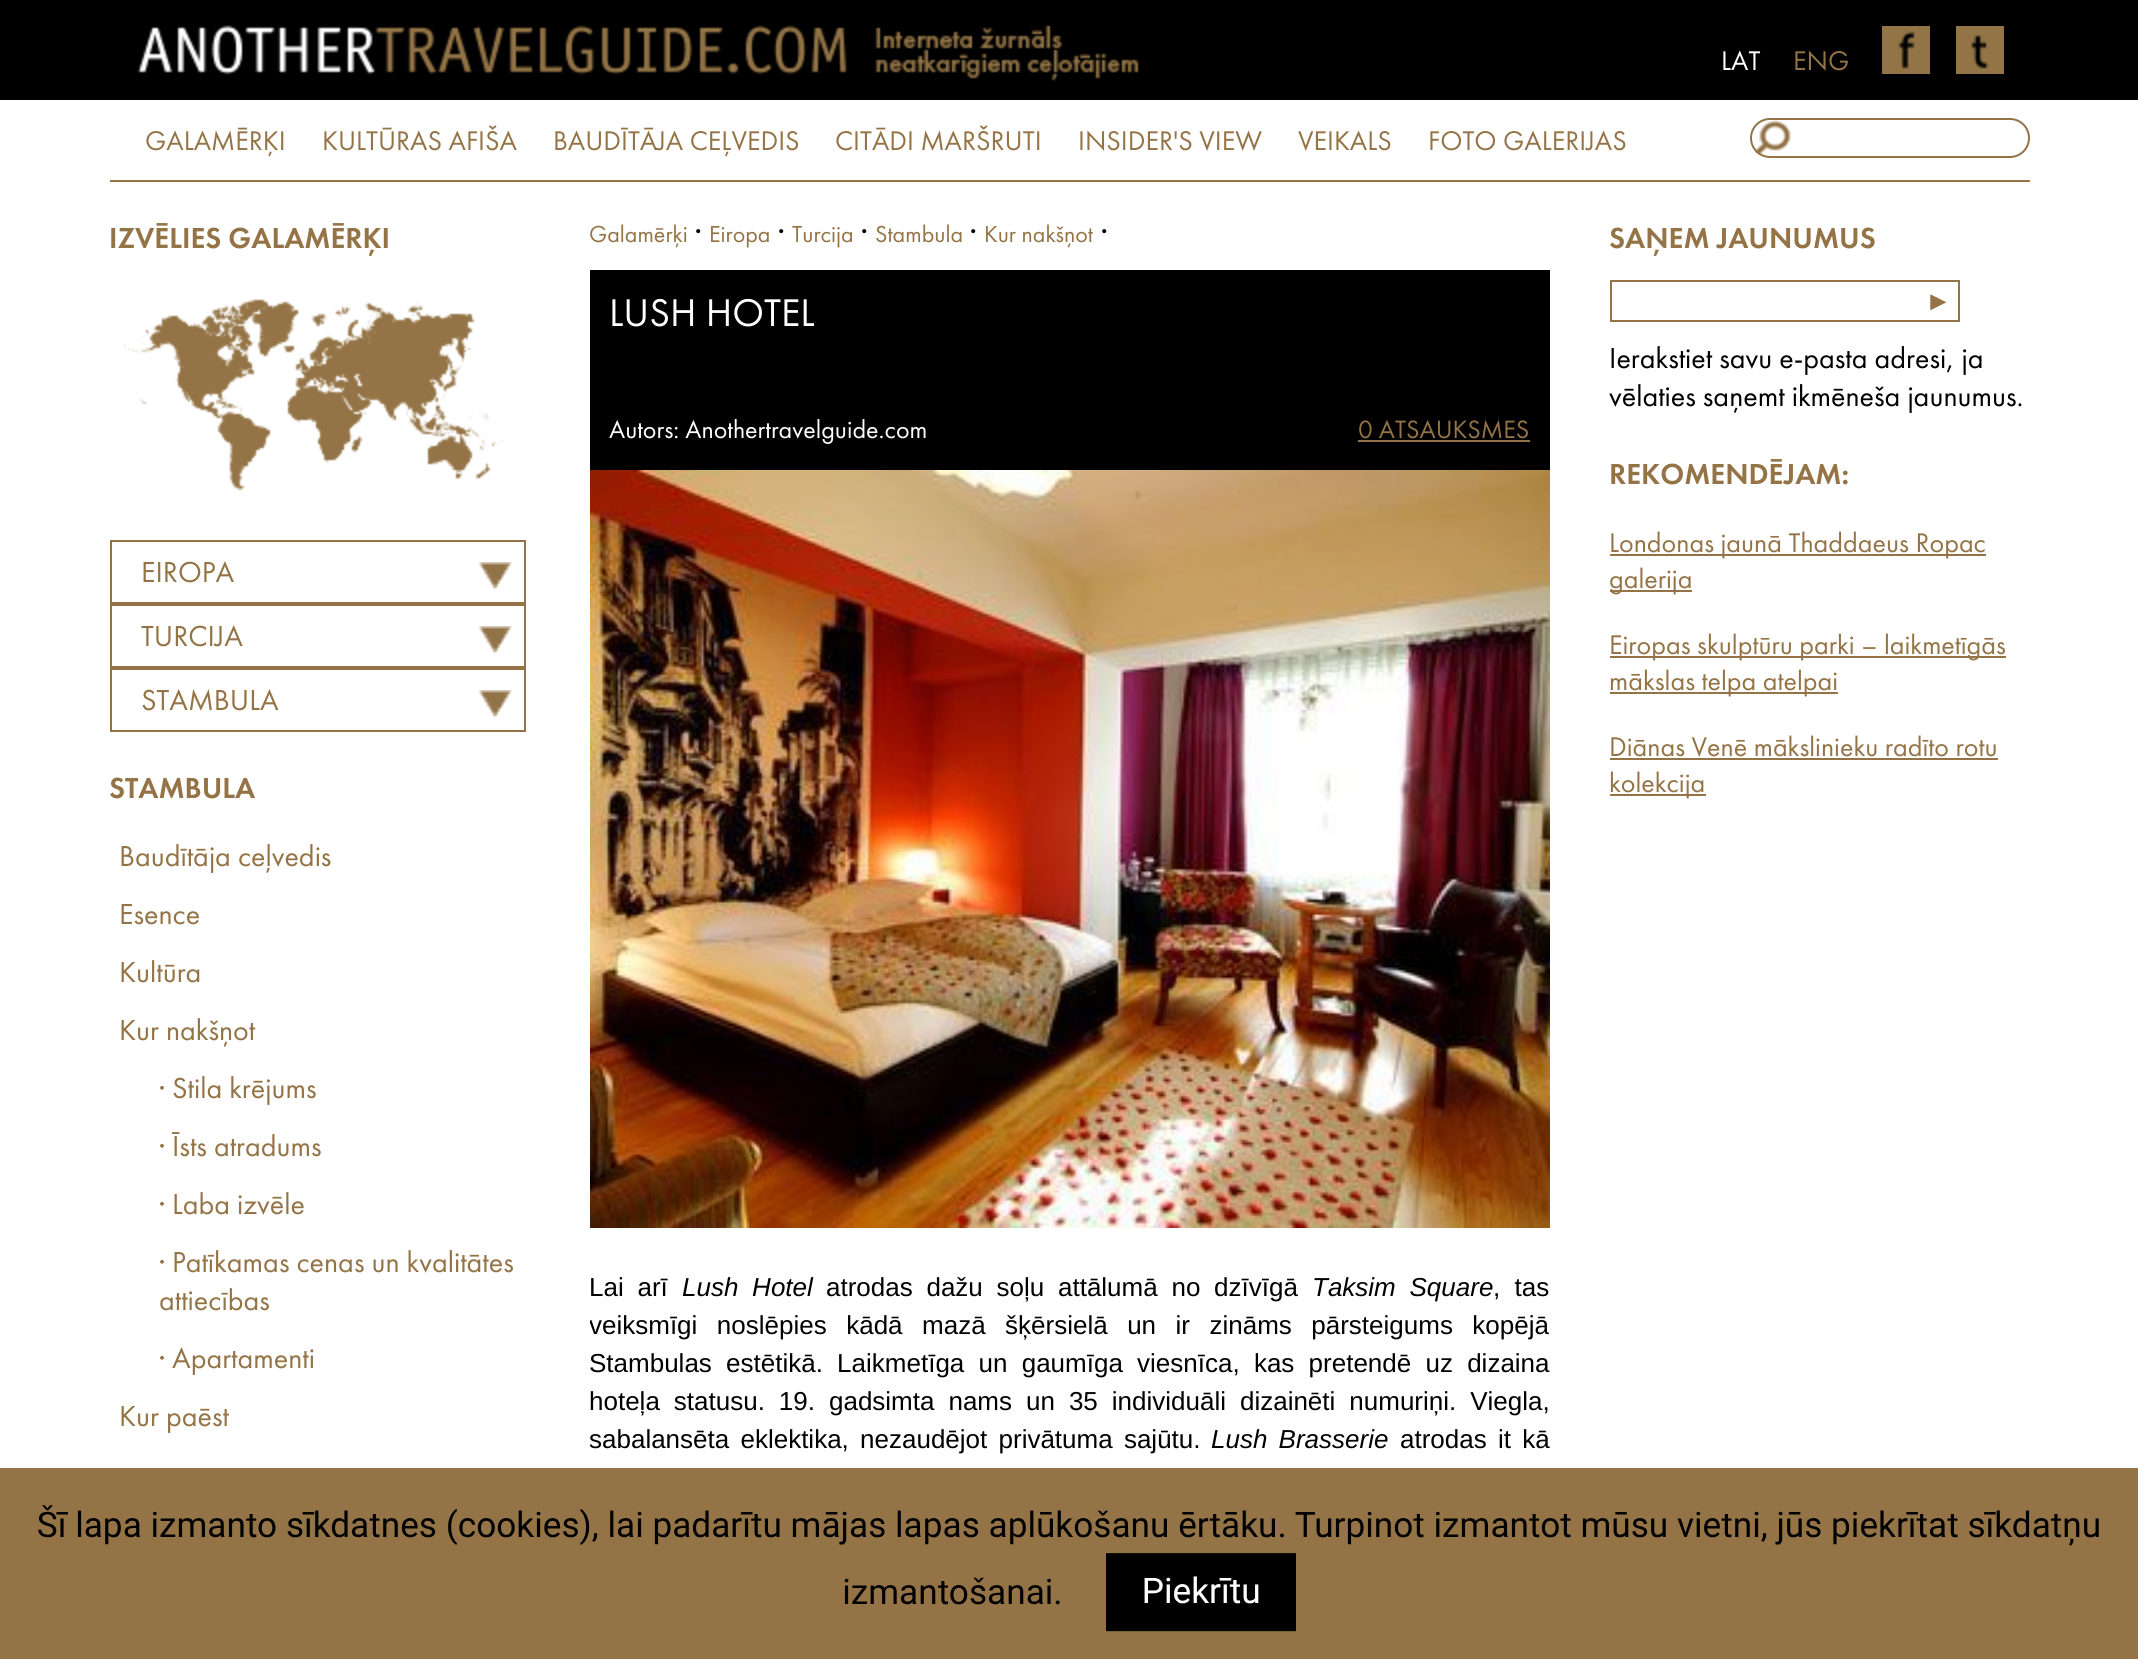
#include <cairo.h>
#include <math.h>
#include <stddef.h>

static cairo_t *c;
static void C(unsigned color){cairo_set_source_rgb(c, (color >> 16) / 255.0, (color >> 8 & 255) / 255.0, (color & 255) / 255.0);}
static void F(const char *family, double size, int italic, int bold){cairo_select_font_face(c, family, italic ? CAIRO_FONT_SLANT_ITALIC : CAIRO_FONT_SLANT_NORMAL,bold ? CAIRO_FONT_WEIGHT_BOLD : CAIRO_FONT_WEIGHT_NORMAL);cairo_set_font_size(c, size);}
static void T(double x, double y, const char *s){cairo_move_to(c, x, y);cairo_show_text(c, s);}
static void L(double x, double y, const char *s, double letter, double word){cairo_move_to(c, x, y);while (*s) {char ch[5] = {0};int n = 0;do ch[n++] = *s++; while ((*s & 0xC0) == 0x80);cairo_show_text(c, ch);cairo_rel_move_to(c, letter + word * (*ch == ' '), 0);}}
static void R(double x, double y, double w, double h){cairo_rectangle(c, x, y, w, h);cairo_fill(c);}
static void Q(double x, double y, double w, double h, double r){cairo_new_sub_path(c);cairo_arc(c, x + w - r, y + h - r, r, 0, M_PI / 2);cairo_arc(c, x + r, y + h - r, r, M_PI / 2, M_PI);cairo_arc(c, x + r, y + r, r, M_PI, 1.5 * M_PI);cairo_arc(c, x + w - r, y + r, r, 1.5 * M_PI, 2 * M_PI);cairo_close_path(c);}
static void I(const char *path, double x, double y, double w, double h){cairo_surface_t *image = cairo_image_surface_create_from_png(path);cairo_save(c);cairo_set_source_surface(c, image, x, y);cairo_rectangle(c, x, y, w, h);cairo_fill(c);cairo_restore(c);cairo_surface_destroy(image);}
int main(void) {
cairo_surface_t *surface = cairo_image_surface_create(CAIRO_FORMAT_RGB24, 2138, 1659);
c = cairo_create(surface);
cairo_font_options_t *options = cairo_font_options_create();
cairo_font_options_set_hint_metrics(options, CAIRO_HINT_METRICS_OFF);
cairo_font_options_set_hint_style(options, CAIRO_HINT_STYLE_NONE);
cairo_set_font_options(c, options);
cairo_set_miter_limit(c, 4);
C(0xffffff);
cairo_paint(c);
C(0x000000);
R(0,0,2138,100);
I("1.png",137,25,1002,56);
F("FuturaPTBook",28,0,0);
C(0xffffff);
T(1721,70,"LAT");
C(0x947446);
T(1793,70,"ENG");
I("2.png",1882,26,48,48);
I("3.png",1956,26,48,48);
R(110,180,1920,2);
T(145,150,"GALAMĒRĶI");
T(322,150,"KULTŪRAS AFIŠA");
T(553,150,"BAUDĪTĀJA CEĻVEDIS");
T(835,150,"CITĀDI MARŠRUTI");
T(1078,150,"INSIDER'S VIEW");
T(1298,150,"VEIKALS");
T(1428,150,"FOTO GALERIJAS");
I("4.png",1754,120,38,36);
Q(1751,119,278,38,19);
cairo_stroke(c);
F("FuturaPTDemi",30,0,0);
T(109,248,"IZVĒLIES GALAMĒRĶI");
I("5.png",123,299,382,192);
cairo_rectangle(c,111,541,414,62);
cairo_stroke(c);
F("FuturaPTBook",30,0,0);
T(141,582,"EIROPA");
I("6.png",478,562,34,29);
cairo_rectangle(c,111,605,414,62);
cairo_stroke(c);
T(141,646,"TURCIJA");
I("6.png",478,626,34,29);
cairo_rectangle(c,111,669,414,62);
cairo_stroke(c);
T(141,710,"STAMBULA");
I("6.png",478,690,34,29);
F("FuturaPTDemi",30,0,0);
T(109,798,"STAMBULA");
F("FuturaPTBook",30,0,0);
T(119,866,"Baudītāja ceļvedis");
T(119,924,"Esence");
T(119,982,"Kultūra");
T(119,1040,"Kur nakšņot");
T(159,1098,"· Stila krējums");
T(159,1156,"· Īsts atradums");
T(159,1214,"· Laba izvēle");
T(159,1272,"· Patīkamas cenas un kvalitātes");
T(159,1310,"attiecības");
T(159,1368,"· Apartamenti");
T(119,1426,"Kur paēst");
F("FuturaPTBook",24,0,0);
T(589,242,"Galamērķi");
F("FuturaPTBook",32,0,0);
C(0x000000);
T(695,242,"·");
F("FuturaPTBook",24,0,0);
C(0x947446);
T(709,242,"Eiropa");
F("FuturaPTBook",32,0,0);
C(0x000000);
T(778,242,"·");
F("FuturaPTBook",24,0,0);
C(0x947446);
T(792,242,"Turcija");
F("FuturaPTBook",32,0,0);
C(0x000000);
T(861,242,"·");
F("FuturaPTBook",24,0,0);
C(0x947446);
T(875,242,"Stambula");
F("FuturaPTBook",32,0,0);
C(0x000000);
T(970,242,"·");
F("FuturaPTBook",24,0,0);
C(0x947446);
T(984,242,"Kur nakšņot");
F("FuturaPTBook",32,0,0);
C(0x000000);
T(1101,242,"·");
F("FuturaPTDemi",30,0,0);
C(0x947446);
T(1609,248,"SAŅEM JAUNUMUS");
R(1610,280,350,2);
R(1610,320,310,2);
R(1610,280,2,42);
R(1958,280,2,42);
R(1920,320,40,2);
F("Liberation Sans",27,0,0);
T(1925,310,"►");
F("FuturaPTBook",30,0,0);
C(0x000000);
T(1609,368,"Ierakstiet savu e-pasta adresi, ja");
T(1609,406,"vēlaties saņemt ikmēneša jaunumus.");
F("FuturaPTDemi",30,0,0);
C(0x947446);
T(1609,484,"REKOMENDĒJAM:");
R(1610,554,376,2);
F("FuturaPTBook",28,0,0);
T(1609,552,"Londonas jaunā Thaddaeus Ropac");
R(1610,590,82,2);
T(1609,588,"galerija");
R(1610,656,396,2);
T(1609,654,"Eiropas skulptūru parki – laikmetīgās");
R(1610,692,228,2);
T(1609,690,"mākslas telpa atelpai");
T(1609,756,"Diānas Venē mākslinieku radīto rotu");
R(1610,758,388,2);
R(1610,794,96,2);
T(1609,792,"kolekcija");
C(0x000000);
R(590,270,960,200);
F("FuturaPTBook",40,0,0);
C(0xffffff);
T(609,326,"LUSH HOTEL");
F("FuturaPTBook",26,0,0);
T(609,438,"Autors: Anothertravelguide.com");
C(0x947446);
T(1358,438,"0 ATSAUKSMES");
R(1358,440,172,2);
I("7.png",590,470,960,758);
F("Liberation Sans",26,0,0);
C(0x000000);
L(589,1296,"Lai arī",0,6.5);
F("Liberation Sans",26,1,0);
L(682,1296,"Lush Hotel",0,6.5);
F("Liberation Sans",26,0,0);
L(826,1296,"atrodas dažu soļu attālumā no dzīvīgā",0,6.5);
F("Liberation Sans",26,1,0);
L(1312,1296,"Taksim Square",0,6.5);
F("Liberation Sans",26,0,0);
L(1493,1296,", tas",0,7);
cairo_save(c);
cairo_rectangle(c,590,270,960,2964);
cairo_clip(c);
L(589,1334,"veiksmīgi noslēpies kādā mazā šķērsielā un ir zināms pārsteigums kopējā",0,12.25);
cairo_restore(c);
L(589,1372,"Stambulas estētikā. Laikmetīga un gaumīga viesnīca, kas pretendē uz dizaina",0,7);
L(589,1410,"hoteļa statusu. 19. gadsimta nams un 35 individuāli dizainēti numuriņi. Viegla,",0,6.75);
L(589,1448,"sabalansēta eklektika, nezaudējot privātuma sajūtu.",0,4);
F("Liberation Sans",26,1,0);
L(1211,1448,"Lush Brasserie",0,4);
F("Liberation Sans",26,0,0);
L(1400,1448,"atrodas it kā",0,4);
I("8.png",0,1468,2138,191);
cairo_surface_write_to_png(surface, "o.png");
cairo_font_options_destroy(options);
cairo_destroy(c);
cairo_surface_destroy(surface);
return 0;
}
